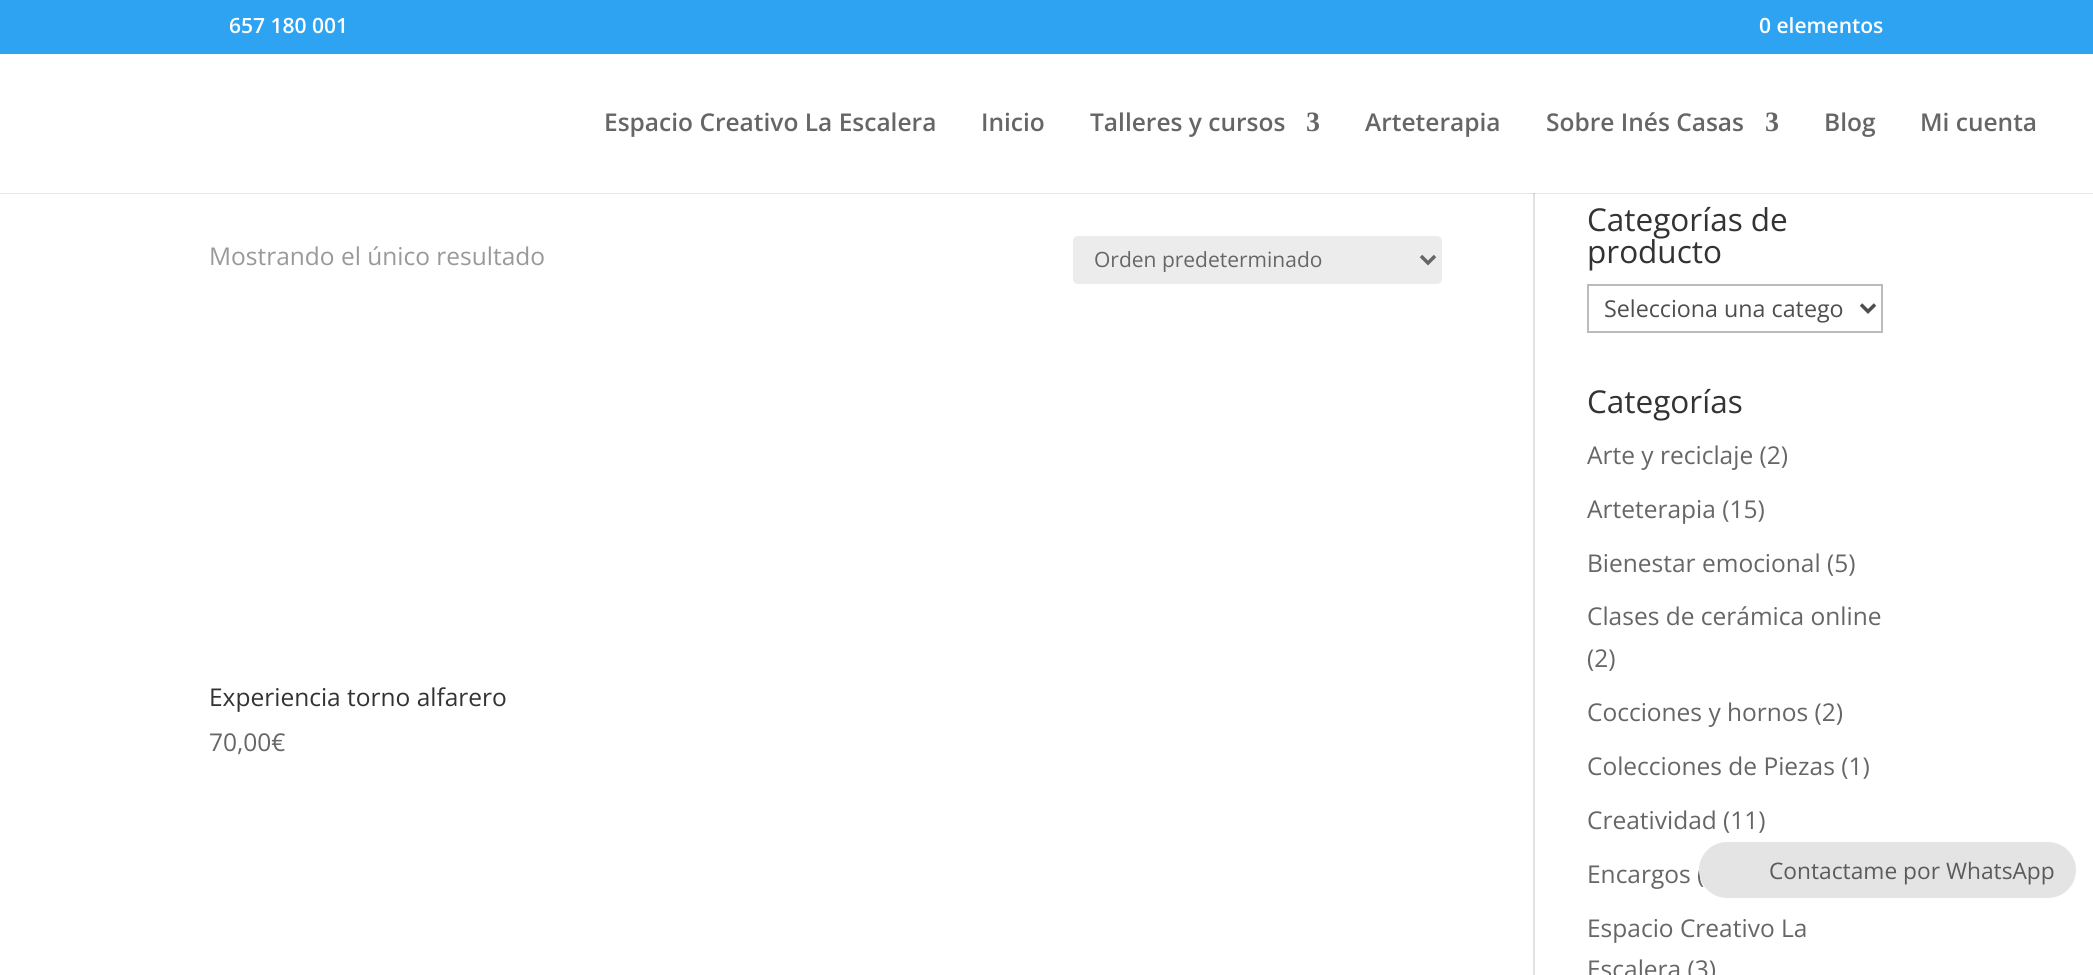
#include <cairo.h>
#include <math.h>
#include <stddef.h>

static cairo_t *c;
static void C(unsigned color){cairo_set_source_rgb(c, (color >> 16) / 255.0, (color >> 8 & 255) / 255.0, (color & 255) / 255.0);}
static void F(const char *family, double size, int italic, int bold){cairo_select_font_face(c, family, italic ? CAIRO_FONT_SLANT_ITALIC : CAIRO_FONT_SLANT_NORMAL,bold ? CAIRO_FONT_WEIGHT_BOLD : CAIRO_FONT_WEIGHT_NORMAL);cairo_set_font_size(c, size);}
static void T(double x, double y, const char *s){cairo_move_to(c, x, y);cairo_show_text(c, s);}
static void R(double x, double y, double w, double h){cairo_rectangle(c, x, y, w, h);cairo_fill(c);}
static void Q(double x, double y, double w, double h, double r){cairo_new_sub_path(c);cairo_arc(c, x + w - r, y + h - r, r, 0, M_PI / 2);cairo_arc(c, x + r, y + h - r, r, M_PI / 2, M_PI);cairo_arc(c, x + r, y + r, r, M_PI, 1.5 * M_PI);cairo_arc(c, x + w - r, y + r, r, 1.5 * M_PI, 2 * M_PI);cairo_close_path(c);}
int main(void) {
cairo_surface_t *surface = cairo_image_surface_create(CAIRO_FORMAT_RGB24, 2093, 975);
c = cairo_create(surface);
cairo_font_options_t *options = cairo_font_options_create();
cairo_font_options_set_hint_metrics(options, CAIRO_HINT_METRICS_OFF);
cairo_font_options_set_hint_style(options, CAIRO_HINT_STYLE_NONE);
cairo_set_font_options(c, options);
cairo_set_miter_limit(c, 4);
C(0xffffff);
cairo_paint(c);
C(0x2ea3f2);
R(0,0,2093,54);
F("Open Sans SemiBold",21,0,0);
C(0xffffff);
T(229,33,"657 180 001");
T(1759,33,"0 elementos");
C(0xe2e2e2);
R(1533,193,2,782);
cairo_set_source_rgba(c,0,0,0,0.1);
R(0,193,2093,1);
F("Open Sans SemiBold",24.5,0,0);
C(0x666666);
T(604,131,"Espacio Creativo La Escalera");
T(981,131,"Inicio");
T(1090,131,"Talleres y cursos");
F("Liberation Serif",28,0,1);
T(1306,131,"3");
F("Open Sans SemiBold",24.5,0,0);
T(1365,131,"Arteterapia");
T(1546,131,"Sobre Inés Casas");
F("Liberation Serif",28,0,1);
T(1765,131,"3");
F("Open Sans SemiBold",24.5,0,0);
T(1824,131,"Blog");
T(1920,131,"Mi cuenta");
F("Open Sans",24.5,0,0);
C(0x999999);
T(209,265,"Mostrando el único resultado");
C(0xececec);
Q(1073,236,369,48,5);
cairo_fill(c);
cairo_new_path(c);
cairo_move_to(c,1421,256);
cairo_line_to(c,1428,263);
cairo_line_to(c,1435,256);
C(0x666666);
cairo_set_line_width(c,3.5);
cairo_stroke(c);
F("Open Sans",21,0,0);
T(1094,267,"Orden predeterminado");
F("Open Sans",24.5,0,0);
C(0x333333);
T(209,706,"Experiencia torno alfarero");
C(0x666666);
T(209,751,"70,00€");
F("Open Sans",31.5,0,0);
C(0x333333);
T(1587,231,"Categorías de");
T(1587,263,"producto");
cairo_rectangle(c,1588,285,294,47);
C(0xbbbbbb);
cairo_set_line_width(c,2);
cairo_stroke(c);
cairo_new_path(c);
cairo_move_to(c,1861,304.5);
cairo_line_to(c,1868,311.5);
cairo_line_to(c,1875,304.5);
C(0x4e4e4e);
cairo_set_line_width(c,3.5);
cairo_stroke(c);
F("Open Sans",23.25,0,0);
T(1604,317,"Selecciona una catego");
F("Open Sans",31.5,0,0);
C(0x333333);
T(1587,413,"Categorías");
F("Open Sans",24.5,0,0);
C(0x666666);
T(1587,464,"Arte y reciclaje (2)");
T(1587,518,"Arteterapia (15)");
T(1587,572,"Bienestar emocional (5)");
T(1587,625,"Clases de cerámica online");
T(1587,667,"(2)");
T(1587,721,"Cocciones y hornos (2)");
T(1587,775,"Colecciones de Piezas (1)");
T(1587,829,"Creatividad (11)");
T(1587,883,"Encargos (");
T(1587,937,"Espacio Creativo La");
T(1587,978,"Escalera (3)");
C(0xe4e4e4);
Q(1699,842,377,56,28);
cairo_fill(c);
F("Open Sans",22.75,0,0);
C(0x5b5b5b);
T(1769,879,"Contactame por WhatsApp");
cairo_surface_write_to_png(surface, "o.png");
cairo_font_options_destroy(options);
cairo_destroy(c);
cairo_surface_destroy(surface);
return 0;
}
